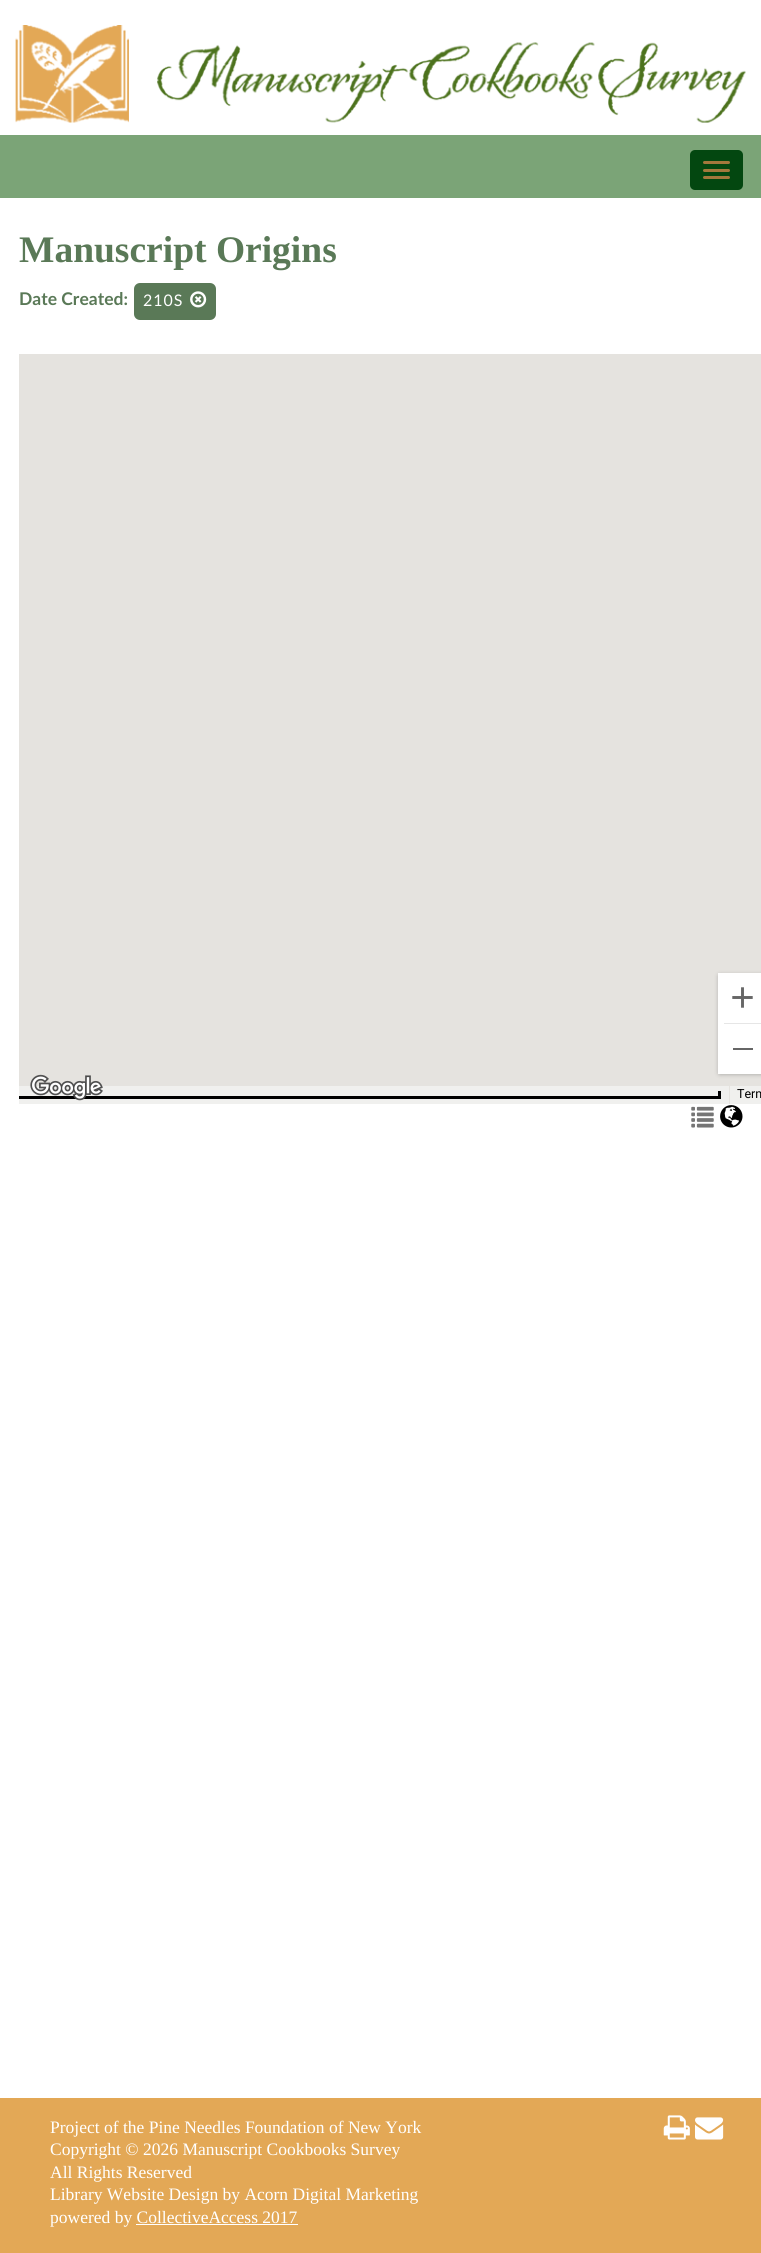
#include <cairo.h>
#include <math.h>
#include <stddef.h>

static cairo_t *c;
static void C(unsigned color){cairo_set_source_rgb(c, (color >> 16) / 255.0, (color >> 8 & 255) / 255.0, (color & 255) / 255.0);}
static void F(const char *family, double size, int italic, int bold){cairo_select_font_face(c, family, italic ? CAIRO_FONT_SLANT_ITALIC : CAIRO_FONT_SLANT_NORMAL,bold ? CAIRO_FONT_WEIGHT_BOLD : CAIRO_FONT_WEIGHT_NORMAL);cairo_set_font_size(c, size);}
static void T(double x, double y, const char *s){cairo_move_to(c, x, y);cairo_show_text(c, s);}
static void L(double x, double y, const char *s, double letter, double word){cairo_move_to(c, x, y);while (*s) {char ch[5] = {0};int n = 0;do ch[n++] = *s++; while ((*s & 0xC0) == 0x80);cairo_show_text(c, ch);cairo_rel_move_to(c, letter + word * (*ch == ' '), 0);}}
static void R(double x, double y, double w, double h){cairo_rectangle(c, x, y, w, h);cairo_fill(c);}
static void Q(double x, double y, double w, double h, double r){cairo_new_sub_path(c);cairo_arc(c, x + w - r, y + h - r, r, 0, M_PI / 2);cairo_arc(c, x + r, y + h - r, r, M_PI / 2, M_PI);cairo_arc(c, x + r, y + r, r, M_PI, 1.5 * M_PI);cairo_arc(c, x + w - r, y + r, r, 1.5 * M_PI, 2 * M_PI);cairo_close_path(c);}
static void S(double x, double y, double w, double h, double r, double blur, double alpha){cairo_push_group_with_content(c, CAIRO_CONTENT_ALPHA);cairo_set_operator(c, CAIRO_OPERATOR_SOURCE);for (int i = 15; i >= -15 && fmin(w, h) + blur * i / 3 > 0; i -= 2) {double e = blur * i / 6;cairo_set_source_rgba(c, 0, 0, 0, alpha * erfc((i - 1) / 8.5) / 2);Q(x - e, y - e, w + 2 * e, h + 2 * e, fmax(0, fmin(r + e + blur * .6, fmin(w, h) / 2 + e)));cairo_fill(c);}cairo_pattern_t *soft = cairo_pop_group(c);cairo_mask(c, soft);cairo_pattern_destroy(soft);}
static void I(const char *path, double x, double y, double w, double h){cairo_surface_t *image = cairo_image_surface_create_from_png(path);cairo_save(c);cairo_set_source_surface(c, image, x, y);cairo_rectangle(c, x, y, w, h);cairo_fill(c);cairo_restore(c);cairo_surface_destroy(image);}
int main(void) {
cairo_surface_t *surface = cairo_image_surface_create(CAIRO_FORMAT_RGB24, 761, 2253);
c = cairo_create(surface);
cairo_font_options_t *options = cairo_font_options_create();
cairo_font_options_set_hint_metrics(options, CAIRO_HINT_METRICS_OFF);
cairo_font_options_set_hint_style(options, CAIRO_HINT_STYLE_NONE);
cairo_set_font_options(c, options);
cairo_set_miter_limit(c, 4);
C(0xffffff);
cairo_paint(c);
I("1.png",15,25,731,98);
C(0x7ba477);
R(0,135,761,63);
C(0x034710);
Q(690,150,53,40,5);
cairo_fill(c);
C(0xa3783c);
Q(703,161,27,3,1.5);
cairo_fill(c);
Q(703,169,27,3,1.5);
cairo_fill(c);
Q(703,176,27,3,1.5);
cairo_fill(c);
F("Liberation Serif",37.5,0,1);
C(0x5a7957);
T(19,262,"Manuscript Origins");
F("Lato",17.5,0,1);
T(19,305,"Date Created:");
Q(134,283,82,37,6);
cairo_fill(c);
F("Lato",16,0,0);
C(0xffffff);
L(143,306,"210S",1,0);
I("2.png",190,291,17,17);
C(0xe5e3df);
R(19,354,742,750);
C(0x000000);
S(719,975,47,99,1,2.5,.3);
C(0xffffff);
R(718,1023,6,1);
R(718,973,43,50);
I("3.png",732,987,21,21);
C(0xe6e6e6);
R(724,1023,37,1);
C(0xffffff);
R(718,1024,43,50);
C(0x666666);
R(733,1048,20,2);
C(0xf0f0ee);
R(19,1086,710,18);
C(0x000000);
R(19,1096,701,3);
I("4.png",30,1074,73,27);
R(718,1091,3,8);
C(0xf0f0ee);
R(730,1086,31,18);
F("Roboto",12.5,0,0);
C(0x000000);
T(737,1098,"Term");
I("5.png",691,1106,23,22);
I("6.png",720,1105,23,23);
C(0xe3a856);
R(0,2098,761,155);
F("Liberation Serif",17.5,0,0);
C(0xffffff);
T(50,2133,"Project of the Pine Needles Foundation of New York");
T(50,2155,"Copyright © 2026 Manuscript Cookbooks Survey");
T(50,2178,"All Rights Reserved");
T(50,2200,"Library Website Design by Acorn Digital Marketing");
T(50,2223,"powered by CollectiveAccess 2017");
R(136,2224,162,1);
I("7.png",663,2115,27,25);
I("8.png",695,2117,29,23);
cairo_surface_write_to_png(surface, "o.png");
cairo_font_options_destroy(options);
cairo_destroy(c);
cairo_surface_destroy(surface);
return 0;
}
